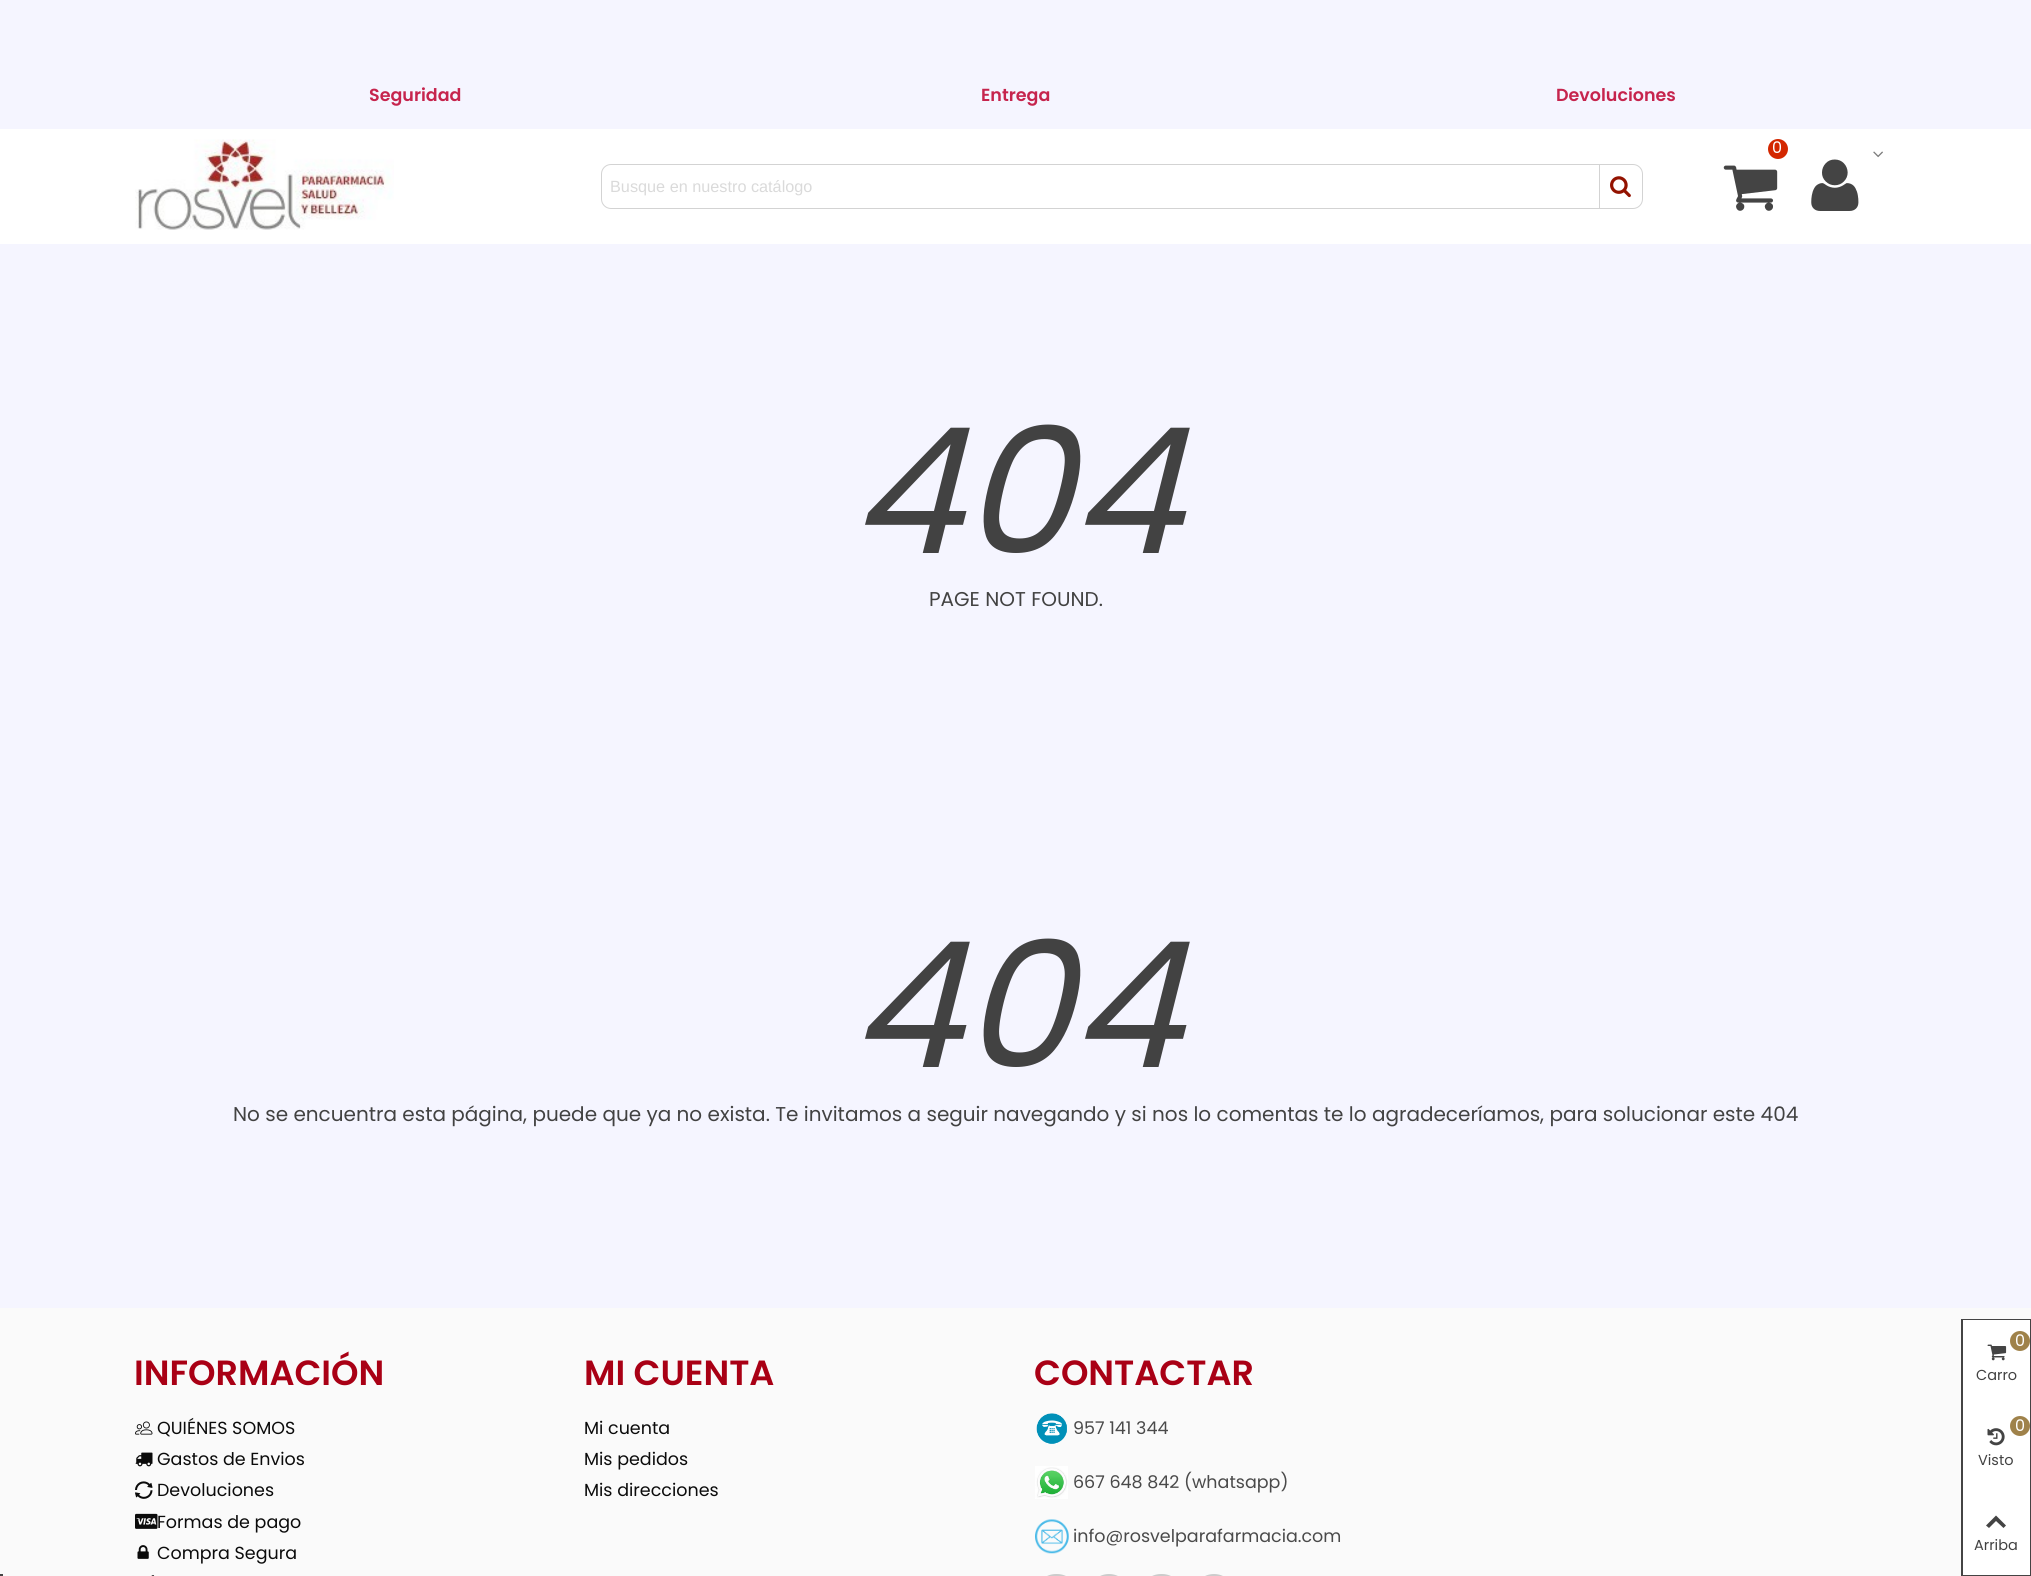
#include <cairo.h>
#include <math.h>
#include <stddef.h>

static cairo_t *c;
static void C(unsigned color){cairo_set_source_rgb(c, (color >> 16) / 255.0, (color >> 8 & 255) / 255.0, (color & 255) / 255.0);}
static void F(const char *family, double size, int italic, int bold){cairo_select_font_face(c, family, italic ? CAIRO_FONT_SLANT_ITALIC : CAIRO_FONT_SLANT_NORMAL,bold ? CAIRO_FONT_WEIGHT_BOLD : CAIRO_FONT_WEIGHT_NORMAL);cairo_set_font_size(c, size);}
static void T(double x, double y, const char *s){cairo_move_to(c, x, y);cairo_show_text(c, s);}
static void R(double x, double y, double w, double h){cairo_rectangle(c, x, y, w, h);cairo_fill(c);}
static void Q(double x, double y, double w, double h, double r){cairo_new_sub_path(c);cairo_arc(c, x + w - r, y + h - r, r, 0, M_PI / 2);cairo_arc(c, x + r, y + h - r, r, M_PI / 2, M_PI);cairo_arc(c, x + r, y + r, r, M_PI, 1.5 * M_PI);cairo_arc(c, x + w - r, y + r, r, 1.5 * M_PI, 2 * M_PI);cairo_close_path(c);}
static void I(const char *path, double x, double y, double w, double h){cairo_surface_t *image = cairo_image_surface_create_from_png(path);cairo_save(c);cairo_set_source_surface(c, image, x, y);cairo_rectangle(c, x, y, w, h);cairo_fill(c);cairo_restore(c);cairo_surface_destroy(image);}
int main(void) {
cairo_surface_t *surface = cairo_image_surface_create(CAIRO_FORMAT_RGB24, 2031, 1576);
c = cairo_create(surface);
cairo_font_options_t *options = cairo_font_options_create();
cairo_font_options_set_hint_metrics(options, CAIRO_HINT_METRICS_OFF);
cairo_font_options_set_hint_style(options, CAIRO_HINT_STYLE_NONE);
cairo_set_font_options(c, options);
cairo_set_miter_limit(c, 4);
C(0xf5f5ff);
cairo_paint(c);
F("Poppins SemiBold",17.5,0,0);
C(0xc6244d);
T(369,101,"Seguridad");
T(981,101,"Entrega");
T(1556,101,"Devoluciones");
C(0xffffff);
R(0,129,2031,115);
I("1.png",135,139,259,91);
C(0xd32700);
cairo_arc(c,1778,149,10,0,2 * M_PI);
cairo_fill(c);
F("Poppins",16,0,0);
C(0xffffff);
T(1772,153,"0");
I("2.png",1723,165,55,46);
I("3.png",1873,151,10,7);
I("4.png",1811,159,48,52);
Q(601.5,164.5,1041,44,9.5);
C(0xd3d3d3);
cairo_set_line_width(c,1);
cairo_stroke(c);
F("Liberation Sans",16.25,0,0);
C(0xdadada);
T(610,192,"Busque en nuestro catálogo");
C(0xd3d3d3);
R(1599,165,1,43);
I("5.png",1610,176,21,22);
F("Poppins",175,1,0);
C(0x424242);
T(851,553,"404");
F("Poppins",20,0,0);
T(929,606,"PAGE NOT FOUND.");
F("Poppins",175,1,0);
T(851,1067,"404");
F("Poppins",20,0,0);
T(233,1121,"No se encuentra esta página, puede que ya no exista. Te invitamos a seguir navegando y si nos lo comentas te lo agradeceríamos, para solucionar este 404");
C(0xfafafa);
R(0,1308,2031,268);
F("Poppins SemiBold",35,0,0);
C(0xa90015);
T(134,1385,"INFORMACIÓN");
I("6.png",135,1421,18,14);
F("Poppins",17.5,0,0);
C(0x0b0b0b);
T(157,1434,"QUIÉNES SOMOS");
I("7.png",135,1452,18,15);
T(157,1465,"Gastos de Envios");
I("8.png",135,1481,18,18);
T(157,1496,"Devoluciones");
I("9.png",135,1513,23,16);
T(157,1528,"Formas de pago");
I("10.png",137,1545,12,14);
T(157,1559,"Compra Segura");
I("11.png",151,1575,4,1);
F("Poppins SemiBold",35,0,0);
C(0xa90015);
T(584,1385,"MI CUENTA");
F("Poppins",17.5,0,0);
C(0x0b0b0b);
T(584,1434,"Mi cuenta");
T(584,1465,"Mis pedidos");
T(584,1496,"Mis direcciones");
F("Poppins SemiBold",35,0,0);
C(0xa90015);
T(1034,1385,"CONTACTAR");
I("12.png",1036,1413,31,31);
F("Poppins",17.5,0,0);
C(0x4a4a4a);
T(1073,1434,"957 141 344");
I("13.png",1035,1466,33,33);
T(1073,1488,"667 648 842 (whatsapp)");
I("14.png",1035,1519,34,35);
T(1073,1542,"info@rosvelparafarmacia.com");
C(0xcccccc);
Q(1035,1574,43,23,21);
cairo_fill(c);
Q(1088,1574,42,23,21);
cairo_fill(c);
Q(1140,1574,43,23,21);
cairo_fill(c);
Q(1193,1574,42,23,21);
cairo_fill(c);
C(0x444444);
R(1961,1319,70,257);
C(0xffffff);
R(1963,1320,67,255);
C(0x9f824a);
cairo_arc(c,2020,1341,10,0,2 * M_PI);
cairo_fill(c);
F("Poppins",16,0,0);
C(0xffffff);
T(2015,1346,"0");
I("15.png",1987,1344,20,17);
F("Poppins",14.5,0,0);
C(0x424242);
T(1976,1380,"Carro");
C(0x9f824a);
cairo_new_path(c);
cairo_arc(c,2020,1426,10,0,2 * M_PI);
cairo_fill(c);
F("Poppins",16,0,0);
C(0xffffff);
T(2015,1431,"0");
I("16.png",1987,1428,18,18);
F("Poppins",14.5,0,0);
C(0x424242);
T(1978,1465,"Visto");
C(0x444444);
cairo_new_path(c);
cairo_move_to(c,1986,1525.5);
cairo_line_to(c,1996,1515.5);
cairo_line_to(c,2006,1525.5);
cairo_line_to(c,2003.5,1528);
cairo_line_to(c,1996,1521);
cairo_line_to(c,1989,1528);
cairo_close_path(c);
cairo_fill(c);
C(0x424242);
T(1974,1550,"Arriba");
C(0x444444);
R(0,1574,3,2);
cairo_surface_write_to_png(surface, "o.png");
cairo_font_options_destroy(options);
cairo_destroy(c);
cairo_surface_destroy(surface);
return 0;
}
